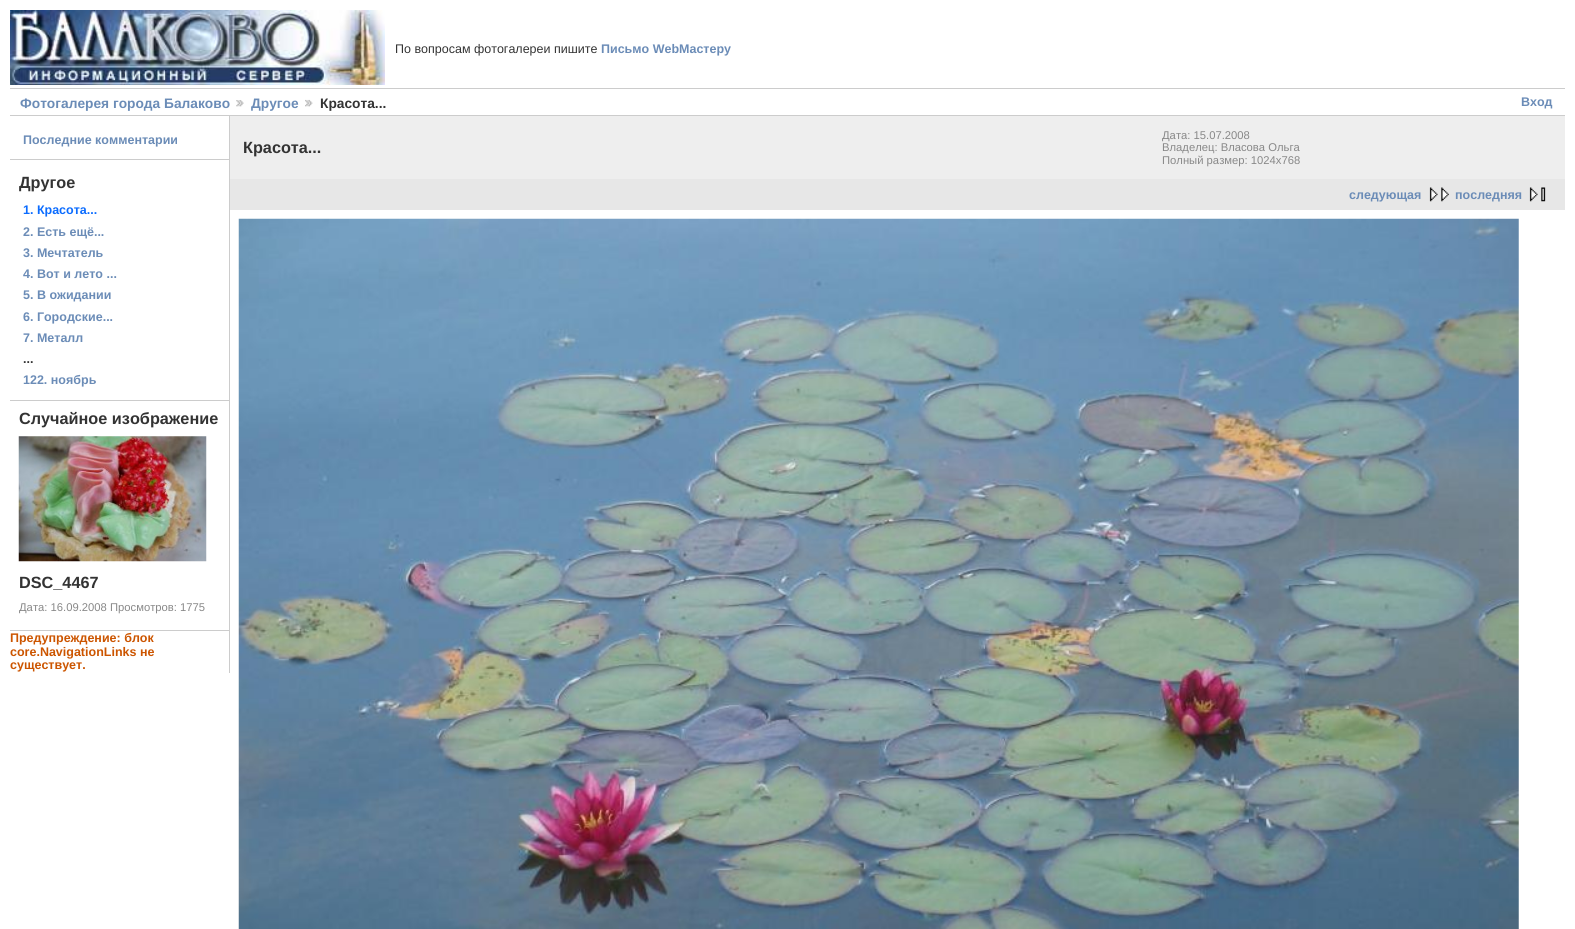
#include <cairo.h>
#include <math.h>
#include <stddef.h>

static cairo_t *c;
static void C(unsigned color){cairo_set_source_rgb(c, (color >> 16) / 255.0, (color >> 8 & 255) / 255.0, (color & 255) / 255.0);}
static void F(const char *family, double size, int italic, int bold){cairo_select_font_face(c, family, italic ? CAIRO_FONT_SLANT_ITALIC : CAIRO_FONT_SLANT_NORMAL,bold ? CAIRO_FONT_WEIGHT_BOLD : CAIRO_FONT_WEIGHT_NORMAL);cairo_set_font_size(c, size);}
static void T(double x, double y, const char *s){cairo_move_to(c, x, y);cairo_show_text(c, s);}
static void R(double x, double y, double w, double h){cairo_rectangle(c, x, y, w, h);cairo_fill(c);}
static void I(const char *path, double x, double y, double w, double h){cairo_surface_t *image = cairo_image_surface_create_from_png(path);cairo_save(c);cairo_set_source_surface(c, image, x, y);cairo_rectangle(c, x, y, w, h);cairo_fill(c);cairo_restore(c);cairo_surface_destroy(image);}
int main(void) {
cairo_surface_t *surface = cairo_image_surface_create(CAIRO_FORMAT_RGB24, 1575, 929);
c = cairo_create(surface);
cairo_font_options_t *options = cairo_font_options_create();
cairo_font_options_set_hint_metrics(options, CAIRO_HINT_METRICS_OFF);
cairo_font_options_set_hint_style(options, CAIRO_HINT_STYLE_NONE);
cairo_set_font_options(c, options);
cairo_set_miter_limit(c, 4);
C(0xffffff);
cairo_paint(c);
I("1.png",10,10,375,75);
F("Liberation Sans",12.5,0,0);
C(0x333333);
T(395,53,"По вопросам фотогалереи пишите");
F("Liberation Sans",12.5,0,1);
C(0x6b8cb7);
T(601,53,"Письмо WebМастеру");
C(0xcccccc);
R(10,88,1555,1);
R(10,115,1555,1);
F("Liberation Sans",13.75,0,1);
C(0x6b8cb7);
T(20,108,"Фотогалерея города Балаково");
I("2.png",236,100,8,7);
T(251,108,"Другое");
I("3.png",305,99,8,8);
C(0x333333);
T(320,108,"Красота...");
F("Liberation Sans",12.5,0,1);
C(0x6b8cb7);
T(1521,106,"Вход");
C(0xcccccc);
R(229,116,1,557);
R(10,159,219,1);
C(0x6b8cb7);
T(23,144,"Последние комментарии");
C(0xcccccc);
R(10,400,219,1);
F("Liberation Sans",16.25,0,1);
C(0x333333);
T(19,188,"Другое");
F("Liberation Sans",12.5,0,1);
C(0x0b6cff);
T(23,214,"1. Красота...");
C(0x6b8cb7);
T(23,236,"2. Есть ещё...");
T(23,257,"3. Мечтатель");
T(23,278,"4. Вот и лето ...");
T(23,299,"5. В ожидании");
T(23,321,"6. Городские...");
T(23,342,"7. Металл");
C(0x333333);
T(23,363,"...");
C(0x6b8cb7);
T(23,384,"122. ноябрь");
C(0xcccccc);
R(10,630,219,1);
F("Liberation Sans",16.25,0,1);
C(0x333333);
T(19,424,"Случайное изображение");
I("4.png",18,436,189,126);
T(19,588,"DSC_4467");
F("Liberation Sans",11.25,0,0);
C(0x888888);
T(19,611,"Дата: 16.09.2008 Просмотров: 1775");
F("Liberation Sans",12.5,0,1);
C(0xcc5500);
T(10,642,"Предупреждение: блок");
T(10,656,"core.NavigationLinks не");
T(10,669,"существует.");
C(0xeeeeee);
R(230,116,1335,63);
F("Liberation Sans",16.25,0,1);
C(0x333333);
T(243,153,"Красота...");
F("Liberation Sans",11.25,0,0);
C(0x888888);
T(1162,139,"Дата: 15.07.2008");
T(1162,151,"Владелец: Власова Ольга");
T(1162,164,"Полный размер: 1024x768");
C(0xe7e7e7);
R(230,179,1335,31);
F("Liberation Sans",12.5,0,1);
C(0x6b8cb7);
T(1349,199,"следующая");
I("5.png",1429,187,20,15);
T(1455,199,"последняя");
I("6.png",1529,187,17,15);
I("7.png",238,218,1281,711);
cairo_surface_write_to_png(surface, "o.png");
cairo_font_options_destroy(options);
cairo_destroy(c);
cairo_surface_destroy(surface);
return 0;
}
